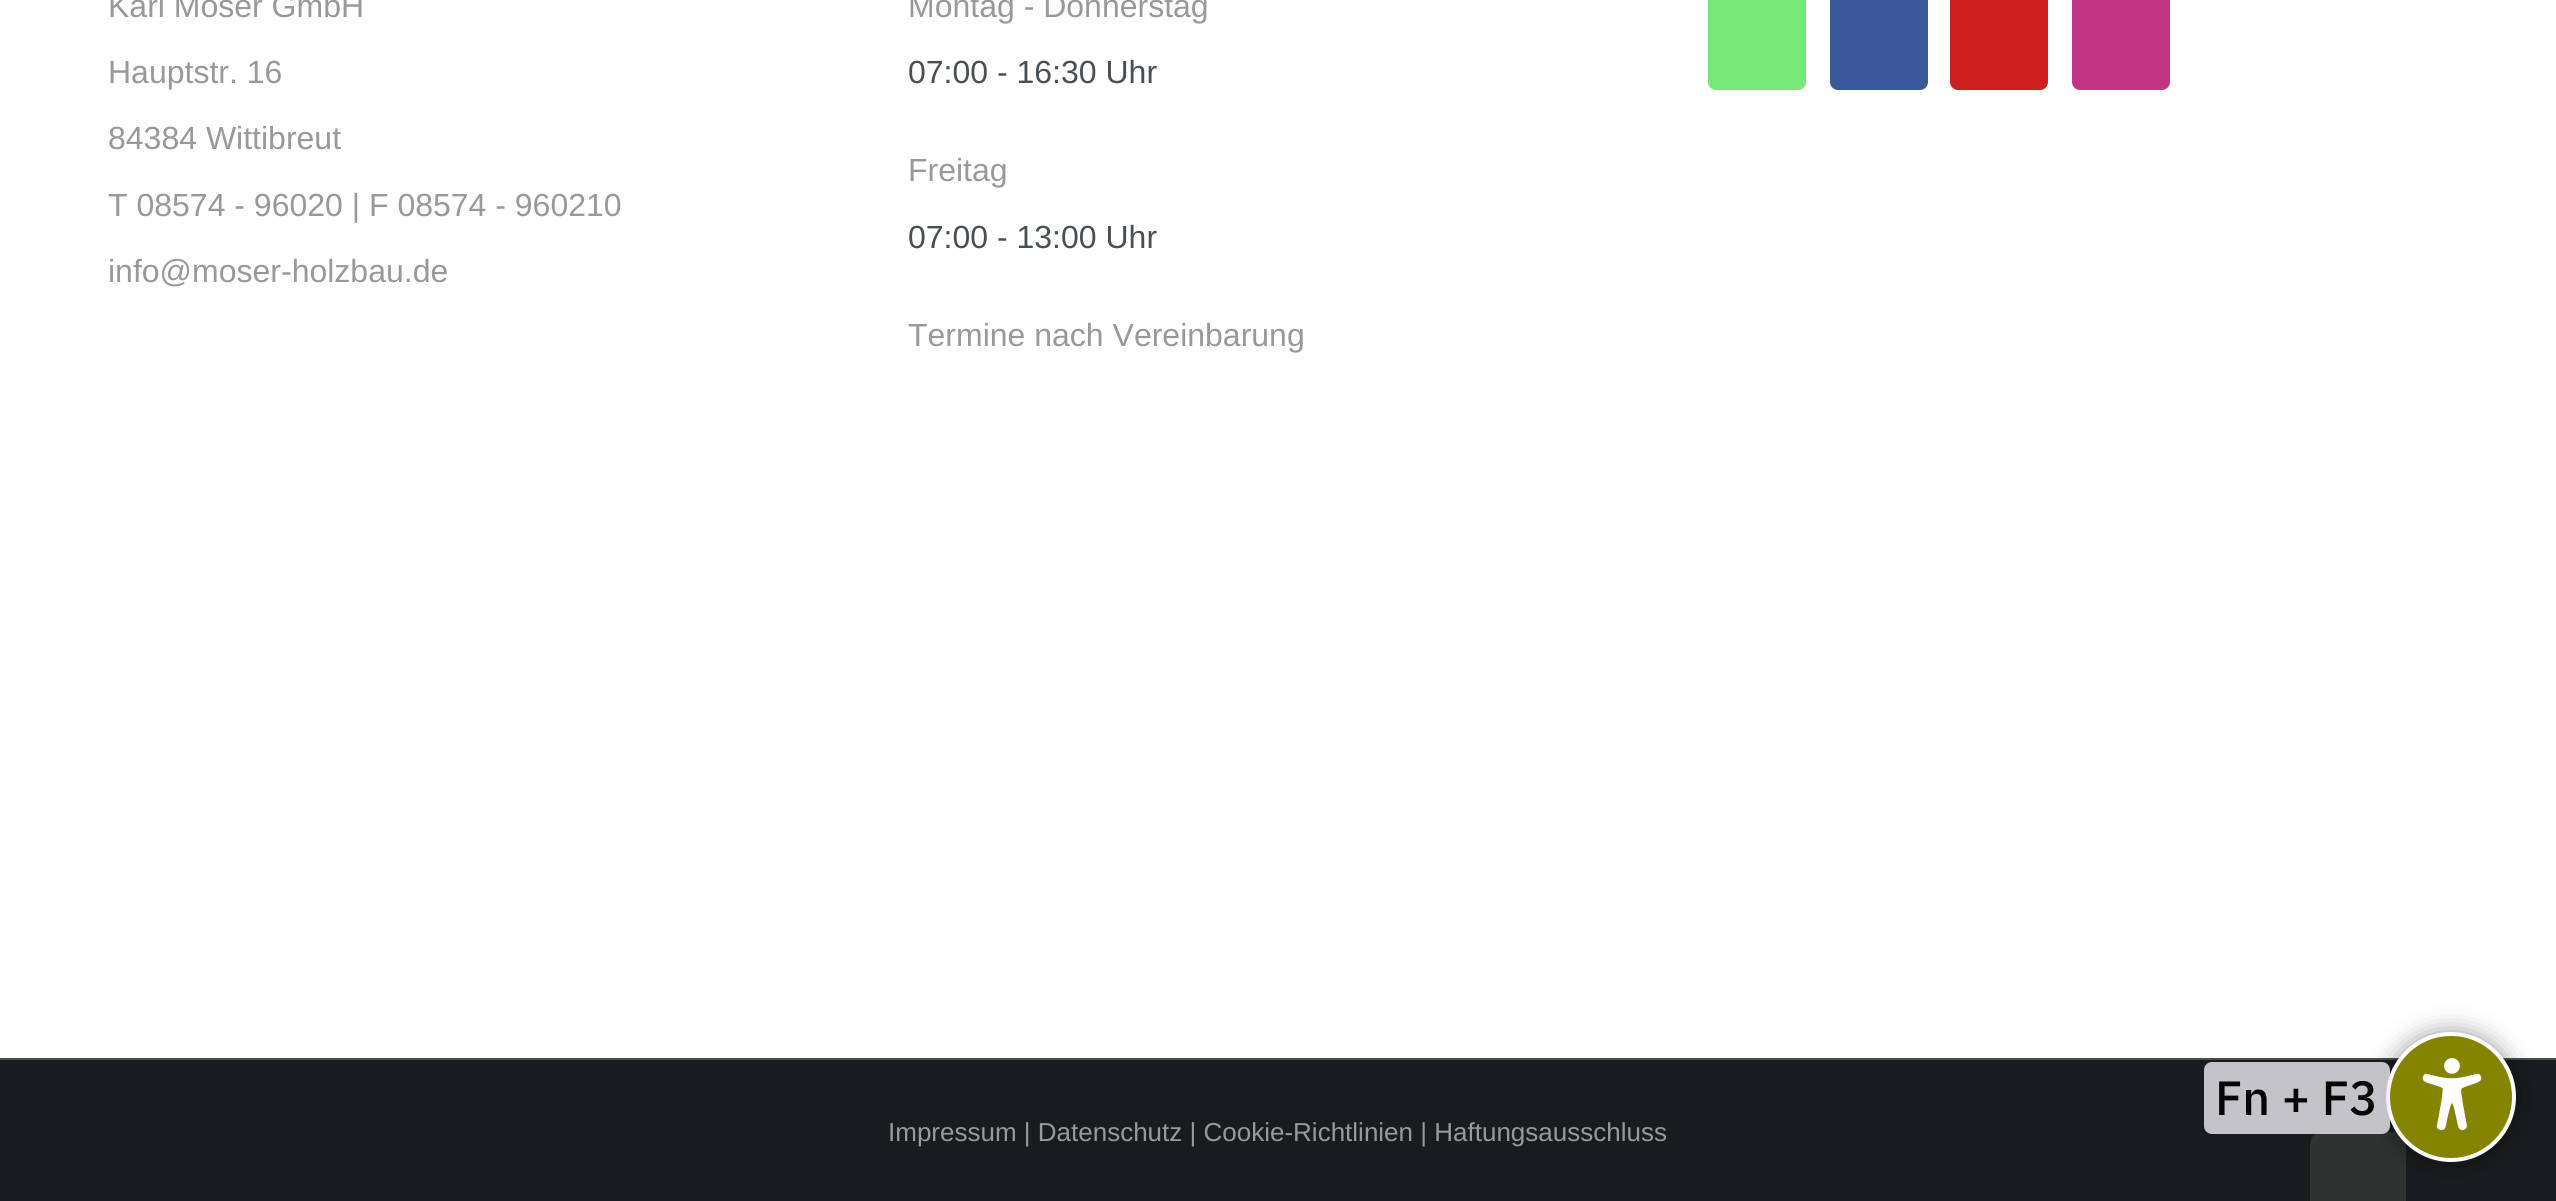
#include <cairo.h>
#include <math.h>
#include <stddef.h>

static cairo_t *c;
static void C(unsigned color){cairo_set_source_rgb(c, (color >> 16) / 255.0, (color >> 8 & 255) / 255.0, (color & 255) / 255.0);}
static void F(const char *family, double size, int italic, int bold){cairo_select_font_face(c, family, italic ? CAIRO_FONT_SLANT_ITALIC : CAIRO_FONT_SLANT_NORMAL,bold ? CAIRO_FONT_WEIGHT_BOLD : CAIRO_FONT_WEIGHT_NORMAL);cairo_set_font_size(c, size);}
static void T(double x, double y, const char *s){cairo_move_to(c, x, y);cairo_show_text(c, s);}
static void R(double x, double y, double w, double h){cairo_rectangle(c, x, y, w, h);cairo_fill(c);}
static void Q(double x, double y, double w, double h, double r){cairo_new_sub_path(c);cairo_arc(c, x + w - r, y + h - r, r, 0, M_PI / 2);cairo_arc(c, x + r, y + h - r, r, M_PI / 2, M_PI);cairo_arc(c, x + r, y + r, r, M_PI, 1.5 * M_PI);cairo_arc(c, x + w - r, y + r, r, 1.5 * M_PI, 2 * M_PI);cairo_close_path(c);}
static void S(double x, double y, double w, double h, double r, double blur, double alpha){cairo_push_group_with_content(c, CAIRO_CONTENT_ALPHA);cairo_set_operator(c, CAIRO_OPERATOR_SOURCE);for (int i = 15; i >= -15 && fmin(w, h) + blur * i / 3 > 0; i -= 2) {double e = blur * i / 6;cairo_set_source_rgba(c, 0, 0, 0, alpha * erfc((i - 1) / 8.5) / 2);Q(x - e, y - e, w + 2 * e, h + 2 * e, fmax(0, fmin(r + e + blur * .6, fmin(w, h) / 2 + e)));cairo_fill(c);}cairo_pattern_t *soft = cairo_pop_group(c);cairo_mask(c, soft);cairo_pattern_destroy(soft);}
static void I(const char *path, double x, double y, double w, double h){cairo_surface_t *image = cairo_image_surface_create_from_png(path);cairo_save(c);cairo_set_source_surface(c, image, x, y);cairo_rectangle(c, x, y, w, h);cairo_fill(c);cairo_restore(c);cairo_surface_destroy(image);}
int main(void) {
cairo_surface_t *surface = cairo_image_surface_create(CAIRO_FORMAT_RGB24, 2556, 1201);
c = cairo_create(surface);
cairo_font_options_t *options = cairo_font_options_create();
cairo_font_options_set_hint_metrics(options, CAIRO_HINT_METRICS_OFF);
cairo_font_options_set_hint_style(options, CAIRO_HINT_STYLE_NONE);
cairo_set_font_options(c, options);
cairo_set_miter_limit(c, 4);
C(0xffffff);
cairo_paint(c);
F("Liberation Sans",32,0,0);
C(0x999999);
T(108,17,"Karl Moser GmbH");
T(108,83,"Hauptstr. 16");
T(108,149,"84384 Wittibreut");
T(108,216,"T 08574 - 96020 | F 08574 - 960210");
T(108,282,"info@moser-holzbau.de");
T(908,17,"Montag - Donnerstag");
C(0x495053);
T(908,83,"07:00 - 16:30 Uhr");
C(0x999999);
T(908,181,"Freitag");
C(0x495053);
T(908,248,"07:00 - 13:00 Uhr");
C(0x999999);
T(908,346,"Termine nach Vereinbarung");
C(0x77e878);
Q(1709,-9,96,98,7);
cairo_fill_preserve(c);
cairo_stroke(c);
C(0x3b5998);
Q(1831,-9,96,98,7);
cairo_fill_preserve(c);
cairo_stroke(c);
C(0xcd201f);
Q(1951,-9,96,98,7);
cairo_fill_preserve(c);
cairo_stroke(c);
C(0xc13584);
Q(2073,-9,96,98,7);
cairo_fill_preserve(c);
cairo_stroke(c);
C(0x191c1e);
R(0,1060,2556,141);
C(0x4b4c4d);
R(0,1058,2556,2);
F("Liberation Sans",26,0,0);
C(0x999999);
T(888,1141,"Impressum | Datenschutz | Cookie-Richtlinien | Haftungsausschluss");
C(0x303131);
cairo_new_path(c);
cairo_move_to(c,2322,1132);
cairo_line_to(c,2394,1132);
cairo_curve_to(c,2400.5,1132,2406,1137.5,2406,1144);
cairo_line_to(c,2406,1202);
cairo_line_to(c,2310,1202);
cairo_line_to(c,2310,1144);
cairo_curve_to(c,2310,1137.5,2315.5,1132,2322,1132);
cairo_close_path(c);
cairo_fill(c);
C(0x000000);
S(2386,1032,130,130,65,12,.4);
C(0x848401);
cairo_arc(c,2451,1097,63,0,2 * M_PI);
cairo_fill_preserve(c);
C(0xffffff);
cairo_set_line_width(c,4);
cairo_stroke(c);
cairo_set_source_rgba(c,0.933,0.929,0.949,0.8);
Q(2204,1062,186,72,8);
cairo_fill(c);
F("IBM Plex Sans Medium",48,0,0);
C(0x050606);
T(2215,1115,"Fn + F3");
I("1.png",2422,1058,60,72);
cairo_surface_write_to_png(surface, "o.png");
cairo_font_options_destroy(options);
cairo_destroy(c);
cairo_surface_destroy(surface);
return 0;
}
